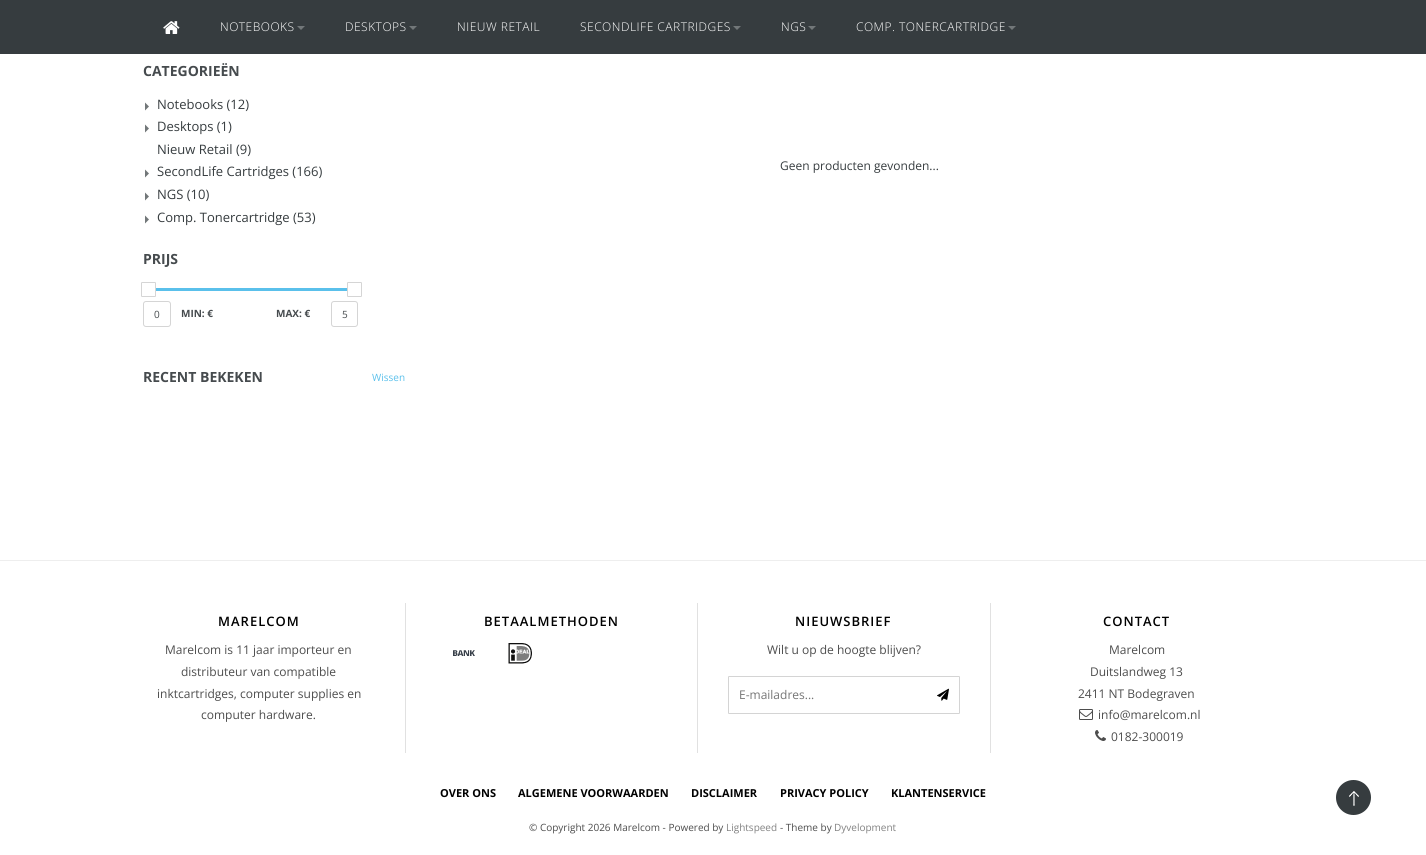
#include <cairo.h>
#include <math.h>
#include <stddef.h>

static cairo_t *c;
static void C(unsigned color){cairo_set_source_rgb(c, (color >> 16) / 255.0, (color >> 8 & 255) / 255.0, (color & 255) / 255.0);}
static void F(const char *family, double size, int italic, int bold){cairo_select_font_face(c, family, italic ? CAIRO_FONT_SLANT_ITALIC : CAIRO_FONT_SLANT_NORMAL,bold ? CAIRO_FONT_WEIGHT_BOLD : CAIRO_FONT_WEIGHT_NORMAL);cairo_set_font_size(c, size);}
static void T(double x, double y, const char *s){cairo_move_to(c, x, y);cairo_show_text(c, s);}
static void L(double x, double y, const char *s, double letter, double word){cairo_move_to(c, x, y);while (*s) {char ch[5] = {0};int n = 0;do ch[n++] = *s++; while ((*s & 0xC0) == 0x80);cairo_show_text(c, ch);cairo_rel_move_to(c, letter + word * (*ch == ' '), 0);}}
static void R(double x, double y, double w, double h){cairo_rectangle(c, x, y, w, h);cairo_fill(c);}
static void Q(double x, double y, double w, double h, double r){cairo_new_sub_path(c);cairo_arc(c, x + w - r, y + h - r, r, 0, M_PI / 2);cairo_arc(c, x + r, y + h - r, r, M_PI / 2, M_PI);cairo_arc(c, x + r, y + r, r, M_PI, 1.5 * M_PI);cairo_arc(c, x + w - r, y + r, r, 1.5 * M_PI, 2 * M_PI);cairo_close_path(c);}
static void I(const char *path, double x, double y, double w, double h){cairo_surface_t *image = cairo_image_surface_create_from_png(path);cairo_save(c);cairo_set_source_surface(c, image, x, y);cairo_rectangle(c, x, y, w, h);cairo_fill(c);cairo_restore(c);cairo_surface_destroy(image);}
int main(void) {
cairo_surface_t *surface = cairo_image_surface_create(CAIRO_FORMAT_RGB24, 1426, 855);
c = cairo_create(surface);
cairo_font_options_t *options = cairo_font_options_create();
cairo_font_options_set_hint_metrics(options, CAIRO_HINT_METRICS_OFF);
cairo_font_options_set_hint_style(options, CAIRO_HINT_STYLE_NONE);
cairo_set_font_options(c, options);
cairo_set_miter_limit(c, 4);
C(0xffffff);
cairo_paint(c);
C(0x363c3f);
R(0,0,1426,54);
I("1.png",163,21,17,13);
F("Open Sans Light",12,0,0);
C(0xffffff);
L(220,31,"NOTEBOOKS",.5,0);
C(0x727779);
cairo_new_path(c);
cairo_move_to(c,297,26);
cairo_line_to(c,305,26);
cairo_line_to(c,301,30);
cairo_close_path(c);
cairo_fill(c);
C(0xffffff);
L(345,31,"DESKTOPS",.5,0);
C(0x727779);
cairo_new_path(c);
cairo_move_to(c,409,26);
cairo_line_to(c,417,26);
cairo_line_to(c,413,30);
cairo_close_path(c);
cairo_fill(c);
C(0xffffff);
L(457,31,"NIEUW RETAIL",.5,0);
L(580,31,"SECONDLIFE CARTRIDGES",.5,0);
C(0x727779);
cairo_new_path(c);
cairo_move_to(c,733,26);
cairo_line_to(c,741,26);
cairo_line_to(c,737,30);
cairo_close_path(c);
cairo_fill(c);
C(0xffffff);
L(781,31,"NGS",.5,0);
C(0x727779);
cairo_new_path(c);
cairo_move_to(c,808,26);
cairo_line_to(c,816,26);
cairo_line_to(c,812,30);
cairo_close_path(c);
cairo_fill(c);
C(0xffffff);
L(856,31,"COMP. TONERCARTRIDGE",.5,0);
C(0x727779);
cairo_new_path(c);
cairo_move_to(c,1008,26);
cairo_line_to(c,1016,26);
cairo_line_to(c,1012,30);
cairo_close_path(c);
cairo_fill(c);
F("Open Sans",14,0,1);
C(0x464b4e);
T(143,76,"CATEGORIEËN");
I("2.png",145,102,4,9);
F("Open Sans",13,0,0);
C(0x363c3f);
T(157,109,"Notebooks (12)");
I("2.png",145,124,4,9);
T(157,131,"Desktops (1)");
T(157,154,"Nieuw Retail (9)");
I("2.png",145,169,4,9);
T(157,176,"SecondLife Cartridges (166)");
I("2.png",145,192,4,9);
T(157,199,"NGS (10)");
I("2.png",145,215,4,9);
T(157,222,"Comp. Tonercartridge (53)");
F("Open Sans",14,0,1);
C(0x464b4e);
T(143,264,"PRIJS");
C(0x5ac0eb);
R(149,288,206,3);
C(0xffffff);
Q(141.5,282.5,14,14,.5);
cairo_fill_preserve(c);
C(0xd5d5d5);
cairo_set_line_width(c,1);
cairo_stroke(c);
C(0xffffff);
Q(347.5,282.5,14,14,.5);
cairo_fill_preserve(c);
C(0xd5d5d5);
cairo_stroke(c);
Q(143.5,301.5,27,25,2.5);
cairo_stroke(c);
F("Open Sans",10,0,0);
C(0x464b4e);
T(154,318,"0");
F("Open Sans",10,0,1);
T(181,317,"MIN: €");
T(276,317,"MAX: €");
Q(331.5,301.5,26,25,2.5);
C(0xd5d5d5);
cairo_stroke(c);
F("Open Sans",10,0,0);
C(0x464b4e);
T(342,318,"5");
F("Open Sans",14,0,1);
T(143,382,"RECENT BEKEKEN");
F("Open Sans",10,0,0);
C(0x5ac0eb);
T(372,381,"Wissen");
F("Open Sans",12,0,0);
C(0x363c3f);
T(780,170,"Geen producten gevonden...");
cairo_new_path(c);
cairo_arc(c,1353.5,797.5,17.5,0,2 * M_PI);
cairo_fill(c);
I("3.png",1349,791,10,15);
C(0xeeeeee);
R(0,560,1426,1);
C(0xe1e1e1);
R(405,603,1,150);
F("Open Sans SemiBold",13,0,0);
C(0x000000);
L(218,626,"MARELCOM",1,0);
F("Open Sans",12,0,0);
C(0x4d4d4d);
T(165,654,"Marelcom is 11 jaar importeur en");
T(181,676,"distributeur van compatible");
T(157,698,"inktcartridges, computer supplies en");
T(201,719,"computer hardware.");
C(0xe1e1e1);
R(697,603,1,150);
F("Open Sans SemiBold",13,0,0);
C(0x000000);
L(484,626,"BETAALMETHODEN",1,0);
I("4.png",453,650,22,6);
I("5.png",508,643,24,21);
C(0xe1e1e1);
R(990,603,1,150);
C(0x000000);
L(795,626,"NIEUWSBRIEF",1,0);
F("Open Sans",12,0,0);
C(0x4d4d4d);
T(767,654,"Wilt u op de hoogte blijven?");
Q(728.5,676.5,231,37,.5);
C(0xd4d4d4);
cairo_stroke(c);
C(0x757575);
T(739,699,"E-mailadres...");
I("6.png",937,688,12,13);
F("Open Sans SemiBold",13,0,0);
C(0x000000);
L(1103,626,"CONTACT",1,0);
F("Open Sans",12,0,0);
C(0x4d4d4d);
T(1109,654,"Marelcom");
T(1090,676,"Duitslandweg 13");
T(1078,698,"2411 NT Bodegraven");
I("7.png",1079,709,14,11);
T(1098,719,"info@marelcom.nl");
I("8.png",1095,730,11,11);
T(1111,741,"0182-300019");
F("Open Sans",11,0,1);
C(0x000000);
T(440,797,"OVER ONS");
T(518,797,"ALGEMENE VOORWAARDEN");
T(691,797,"DISCLAIMER");
T(780,797,"PRIVACY POLICY");
T(891,797,"KLANTENSERVICE");
F("Open Sans",10,0,0);
C(0x4d4d4d);
T(529,831,"© Copyright 2026 Marelcom - Powered by");
C(0x828282);
T(726,831,"Lightspeed");
C(0x4d4d4d);
T(780,831,"- Theme by");
C(0x828282);
T(834,831,"Dyvelopment");
cairo_surface_write_to_png(surface, "o.png");
cairo_font_options_destroy(options);
cairo_destroy(c);
cairo_surface_destroy(surface);
return 0;
}
